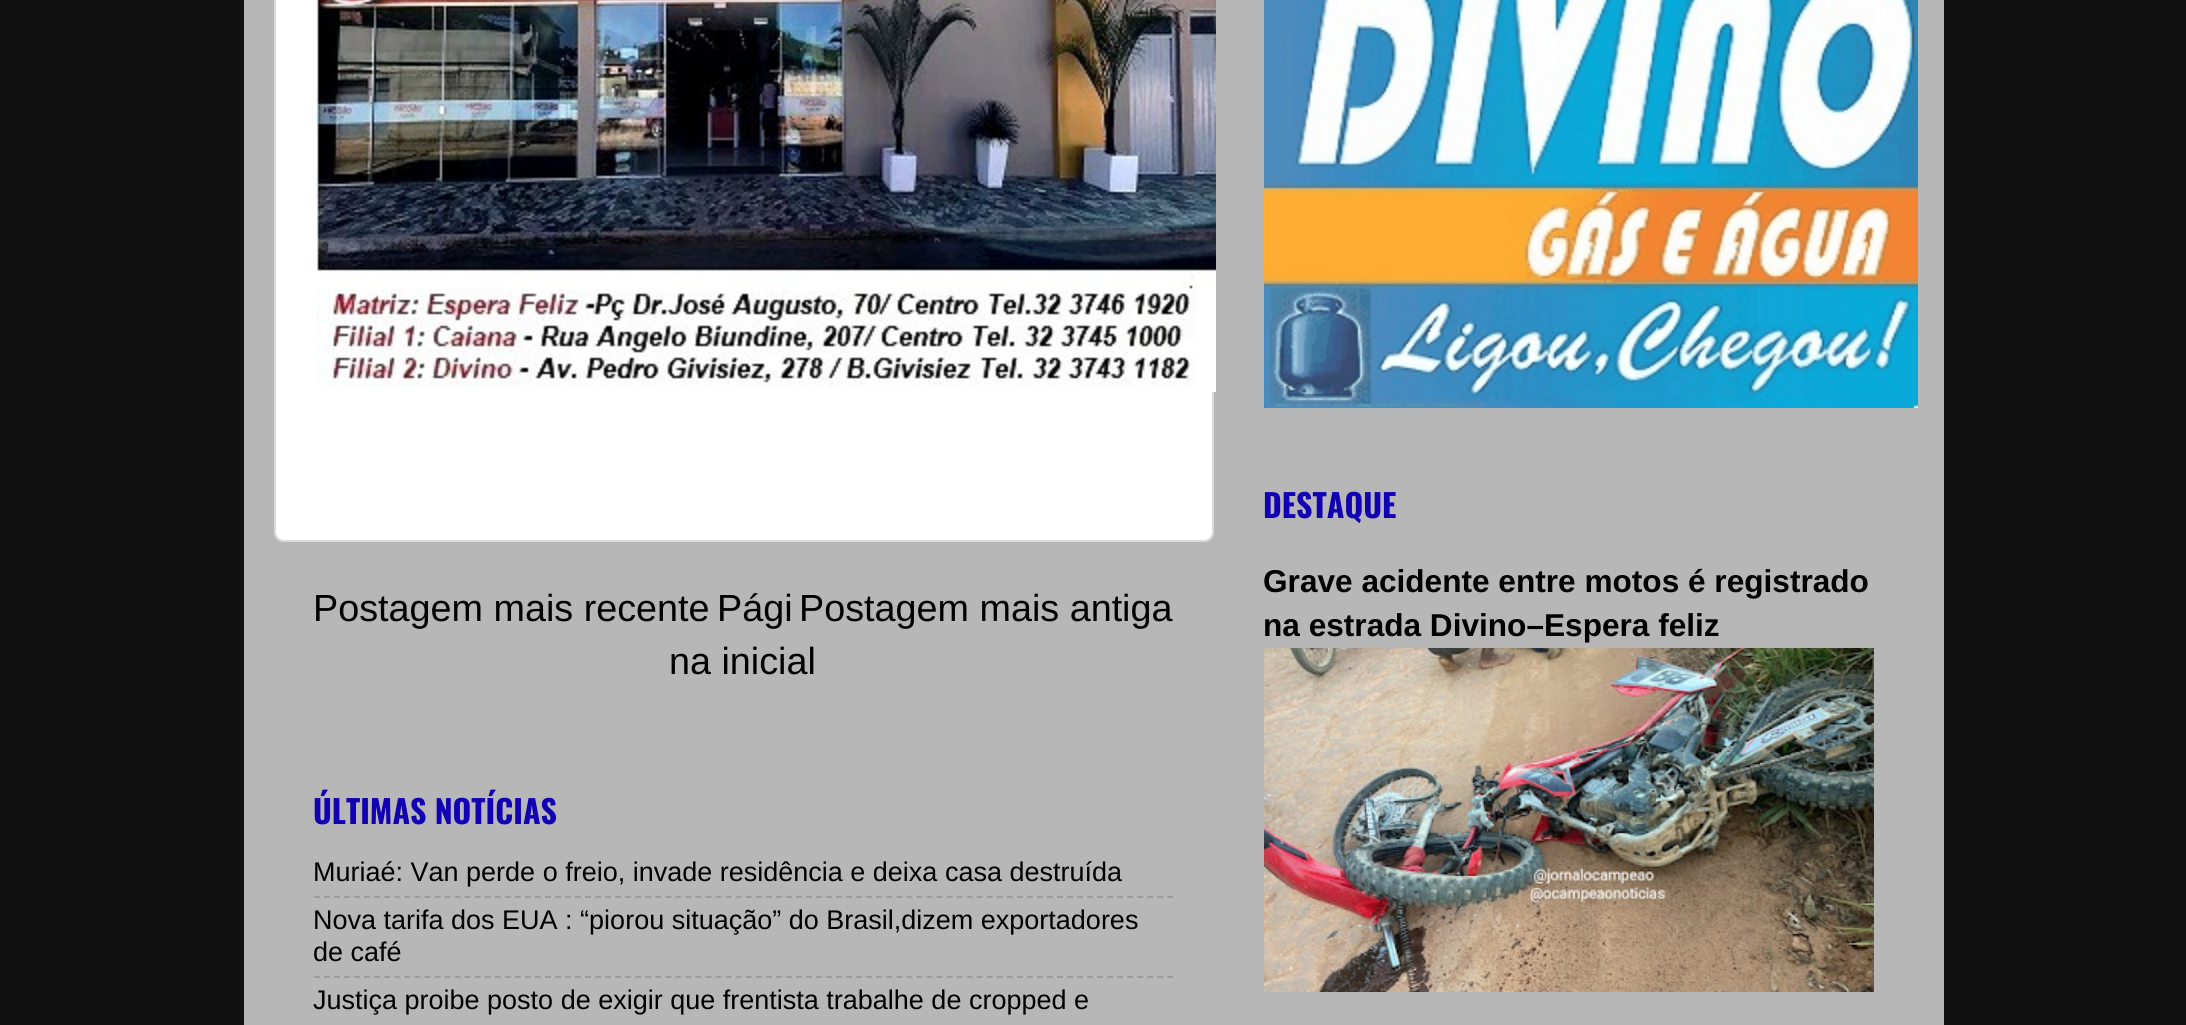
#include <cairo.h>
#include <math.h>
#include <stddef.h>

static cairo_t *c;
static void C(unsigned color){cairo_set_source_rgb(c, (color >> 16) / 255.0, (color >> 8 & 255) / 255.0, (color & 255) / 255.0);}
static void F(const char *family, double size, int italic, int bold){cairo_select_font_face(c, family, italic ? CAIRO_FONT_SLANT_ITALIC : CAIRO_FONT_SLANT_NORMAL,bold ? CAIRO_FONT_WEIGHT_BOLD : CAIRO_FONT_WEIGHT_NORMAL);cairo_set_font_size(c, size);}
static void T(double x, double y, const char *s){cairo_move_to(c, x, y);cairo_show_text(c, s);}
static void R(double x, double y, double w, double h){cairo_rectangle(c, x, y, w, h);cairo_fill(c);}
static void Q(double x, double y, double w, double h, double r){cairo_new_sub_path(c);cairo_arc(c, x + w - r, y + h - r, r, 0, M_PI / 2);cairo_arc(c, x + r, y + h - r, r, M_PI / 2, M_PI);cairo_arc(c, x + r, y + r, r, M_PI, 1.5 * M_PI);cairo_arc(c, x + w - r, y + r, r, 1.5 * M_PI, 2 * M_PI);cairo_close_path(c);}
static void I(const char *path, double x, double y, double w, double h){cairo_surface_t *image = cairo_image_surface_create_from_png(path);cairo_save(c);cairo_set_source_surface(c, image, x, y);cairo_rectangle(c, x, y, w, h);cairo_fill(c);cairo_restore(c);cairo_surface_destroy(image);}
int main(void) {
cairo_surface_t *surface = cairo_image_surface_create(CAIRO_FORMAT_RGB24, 2186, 1025);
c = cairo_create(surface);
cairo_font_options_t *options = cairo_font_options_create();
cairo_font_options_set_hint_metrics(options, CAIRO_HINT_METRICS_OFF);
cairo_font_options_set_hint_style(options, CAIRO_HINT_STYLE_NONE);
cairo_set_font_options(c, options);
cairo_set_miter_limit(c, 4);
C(0x111111);
cairo_paint(c);
C(0xb7b7b7);
R(244,0,1700,1025);
I("1.png",1264,0,654,408);
F("Oswald",32,0,1);
C(0x1200b5);
T(1263,518,"DESTAQUE");
F("Liberation Sans",31.6,0,1);
C(0x000000);
T(1263,592,"Grave acidente entre motos é registrado");
T(1263,636,"na estrada Divino–Espera feliz");
I("2.png",1264,648,610,344);
C(0xffffff);
Q(275,-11,938,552,9);
cairo_fill_preserve(c);
C(0xdbdbdb);
cairo_stroke(c);
I("3.png",316,0,900,392);
F("Liberation Sans",37.75,0,0);
C(0x000000);
T(313,621,"Postagem mais recente");
T(717,621,"Pági");
T(799,621,"Postagem mais antiga");
T(669,674,"na inicial");
F("Oswald",32,0,1);
C(0x1200b5);
T(313,824,"ÚLTIMAS NOTÍCIAS");
F("Liberation Sans",27,0,0);
C(0x000000);
T(313,881,"Muriaé: Van perde o freio, invade residência e deixa casa destruída");
cairo_new_path(c);
cairo_move_to(c,314,897);
cairo_line_to(c,1174,897);
C(0x9c9c9c);
cairo_set_dash(c,(double[]){6,4.04},2,0);
cairo_stroke(c);
C(0x000000);
T(313,929,"Nova tarifa dos EUA : “piorou situação” do Brasil,dizem exportadores");
T(313,961,"de café");
cairo_new_path(c);
cairo_move_to(c,314,977);
cairo_line_to(c,1174,977);
C(0x9c9c9c);
cairo_stroke(c);
C(0x000000);
T(313,1009,"Justiça proibe posto de exigir que frentista trabalhe de cropped e");
cairo_surface_write_to_png(surface, "o.png");
cairo_font_options_destroy(options);
cairo_destroy(c);
cairo_surface_destroy(surface);
return 0;
}
